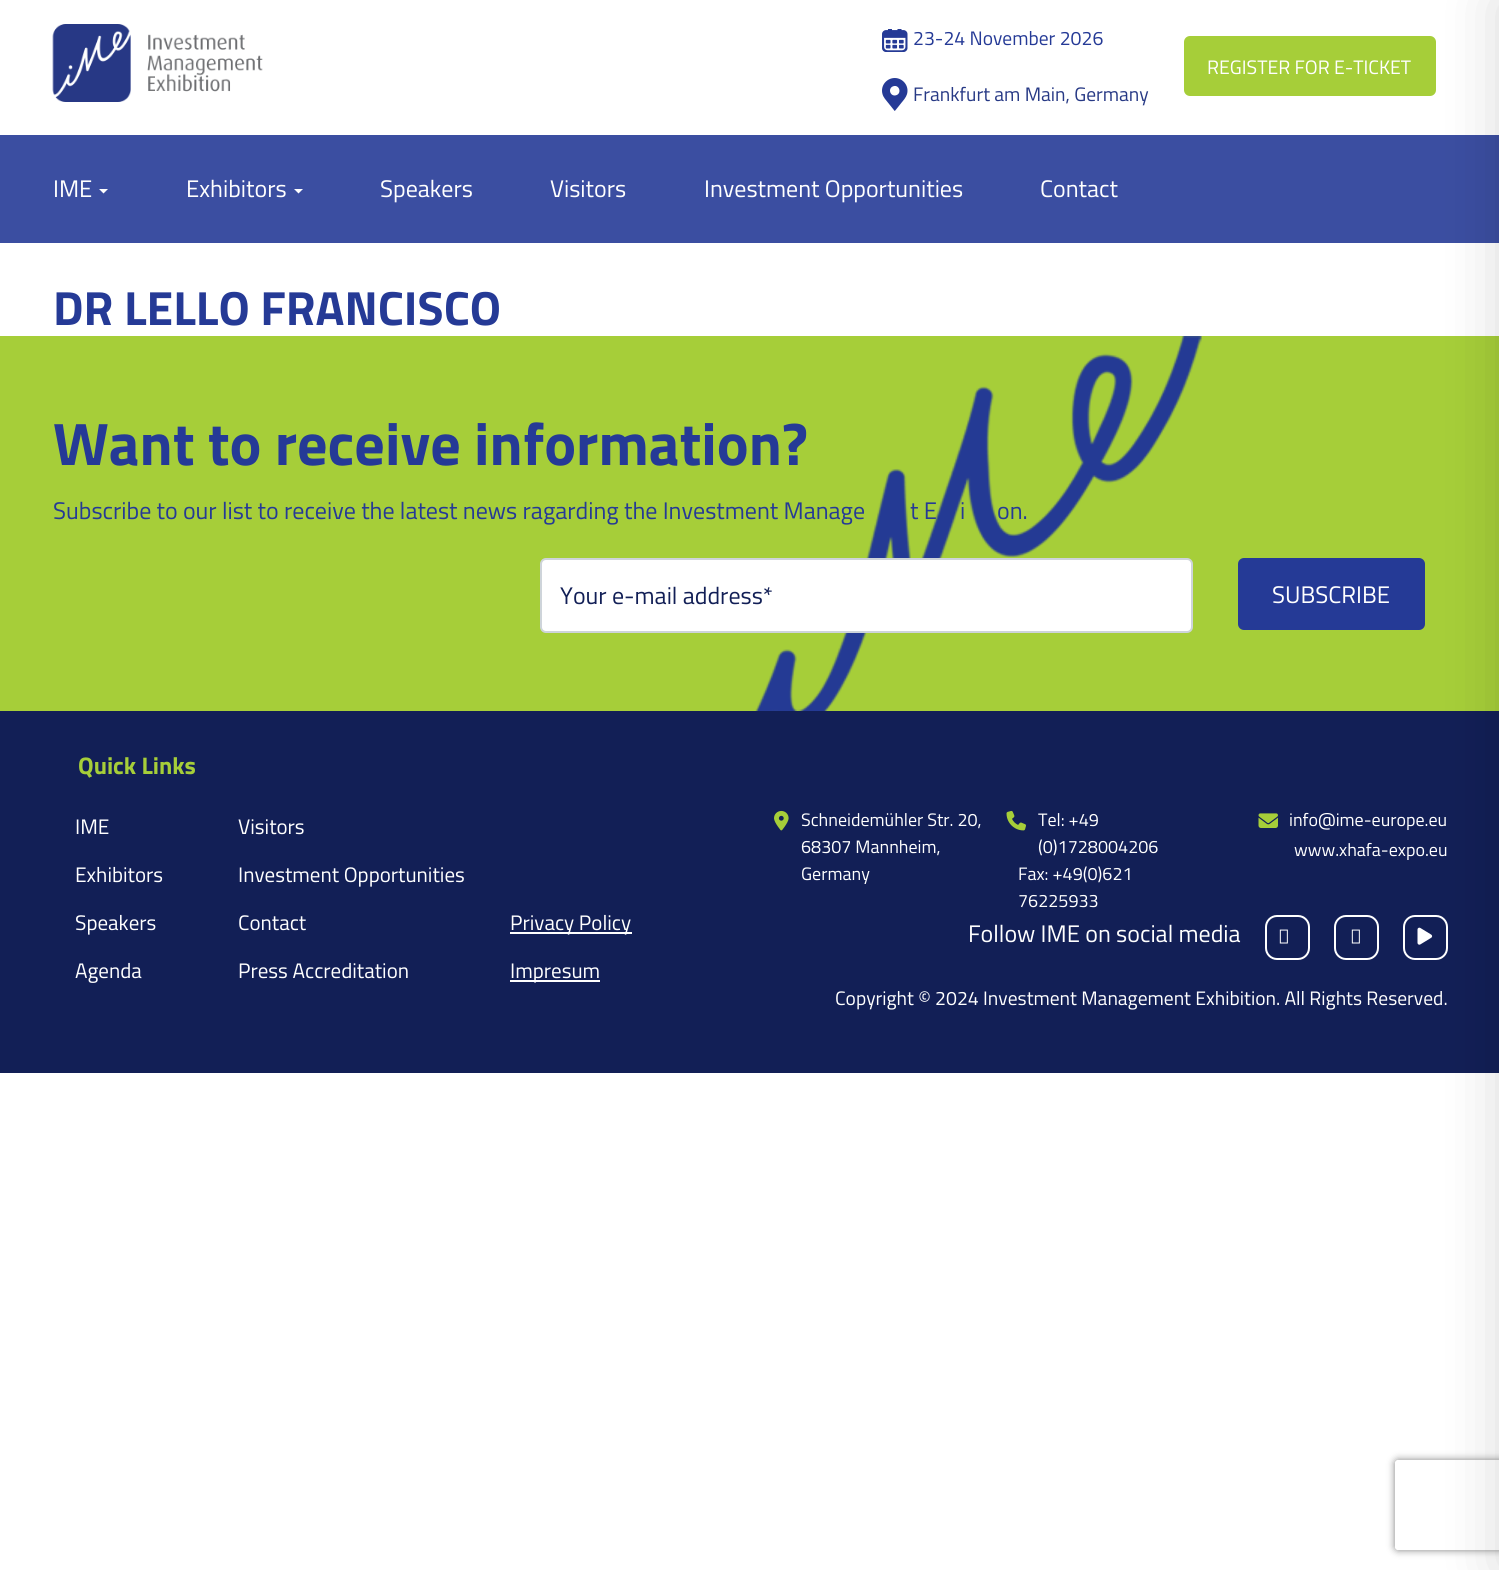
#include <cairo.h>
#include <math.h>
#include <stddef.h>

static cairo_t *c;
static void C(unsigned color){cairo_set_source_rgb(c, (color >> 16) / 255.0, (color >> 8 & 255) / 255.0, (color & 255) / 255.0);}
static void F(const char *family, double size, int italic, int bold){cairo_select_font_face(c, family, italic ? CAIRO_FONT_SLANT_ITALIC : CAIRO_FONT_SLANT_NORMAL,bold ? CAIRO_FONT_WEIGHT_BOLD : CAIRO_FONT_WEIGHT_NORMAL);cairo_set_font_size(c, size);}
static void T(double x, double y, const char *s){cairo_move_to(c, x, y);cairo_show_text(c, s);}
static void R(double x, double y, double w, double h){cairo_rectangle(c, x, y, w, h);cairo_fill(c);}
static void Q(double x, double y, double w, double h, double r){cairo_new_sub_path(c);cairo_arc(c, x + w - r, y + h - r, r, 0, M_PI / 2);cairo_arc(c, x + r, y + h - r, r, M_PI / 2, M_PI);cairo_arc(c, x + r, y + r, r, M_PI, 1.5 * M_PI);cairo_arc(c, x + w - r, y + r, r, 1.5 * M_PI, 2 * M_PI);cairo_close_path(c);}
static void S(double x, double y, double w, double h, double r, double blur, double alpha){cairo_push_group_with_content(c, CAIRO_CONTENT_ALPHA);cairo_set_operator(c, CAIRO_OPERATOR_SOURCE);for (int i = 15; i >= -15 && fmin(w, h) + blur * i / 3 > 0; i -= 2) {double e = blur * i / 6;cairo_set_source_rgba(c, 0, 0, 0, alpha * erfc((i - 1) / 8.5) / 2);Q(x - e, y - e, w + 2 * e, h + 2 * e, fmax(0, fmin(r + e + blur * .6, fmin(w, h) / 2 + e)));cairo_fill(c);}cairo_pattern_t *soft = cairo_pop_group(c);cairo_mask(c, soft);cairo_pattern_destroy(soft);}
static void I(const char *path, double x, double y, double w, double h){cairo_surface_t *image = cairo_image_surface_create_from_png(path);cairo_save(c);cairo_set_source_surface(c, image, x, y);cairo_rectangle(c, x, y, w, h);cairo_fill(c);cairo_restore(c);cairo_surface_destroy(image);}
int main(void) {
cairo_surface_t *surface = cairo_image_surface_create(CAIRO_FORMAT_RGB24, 1499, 1570);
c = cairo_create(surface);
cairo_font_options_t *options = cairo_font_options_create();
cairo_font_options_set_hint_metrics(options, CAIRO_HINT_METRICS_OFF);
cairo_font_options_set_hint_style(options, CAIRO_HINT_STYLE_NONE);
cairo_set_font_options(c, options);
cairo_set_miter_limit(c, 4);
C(0xffffff);
cairo_paint(c);
I("1.png",52,24,211,78);
I("2.png",882,29,26,23);
F("Cairo",19.5,0,0);
C(0x253a96);
T(913,45,"23-24 November 2026");
I("3.png",882,78,26,33);
C(0x273985);
T(913,101,"Frankfurt am Main, Germany");
C(0xa6ce39);
Q(1184,36,252,60,6);
cairo_fill(c);
C(0xffffff);
T(1207,74,"REGISTER FOR E-TICKET");
C(0x3b4ea1);
R(0,135,1499,108);
F("Cairo",24,0,0);
C(0xffffff);
T(53,197,"IME");
cairo_new_path(c);
cairo_move_to(c,99,189);
cairo_line_to(c,108,189);
cairo_line_to(c,103.5,193.5);
cairo_close_path(c);
cairo_fill(c);
T(186,197,"Exhibitors");
cairo_new_path(c);
cairo_move_to(c,294,189);
cairo_line_to(c,303,189);
cairo_line_to(c,298.5,193.5);
cairo_close_path(c);
cairo_fill(c);
T(380,197,"Speakers");
T(550,197,"Visitors");
T(704,197,"Investment Opportunities");
T(1040,197,"Contact");
C(0xa6ce39);
R(0,336,1499,375);
C(0x253a96);
Q(1238,558,187,72,6);
cairo_fill(c);
C(0x121f56);
R(0,711,1499,362);
Q(1404,916,43,43,11);
C(0xffffff);
cairo_stroke(c);
I("9.png",1417,927,16,18);
C(0x000000);
S(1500,0,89,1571,0,30,.15);
F("Cairo",48,0,1);
C(0x253a96);
T(53,325,"DR LELLO FRANCISCO");
I("4.png",755,336,447,375);
F("Cairo",60,0,1);
T(53,465,"Want to receive information?");
F("Cairo",24,0,0);
T(53,519,"Subscribe to our list to receive the latest news ragarding the Investment Manage");
T(910,519,"t E");
T(960,519,"i");
T(997,519,"on.");
C(0xffffff);
Q(541,559,651,73,5);
cairo_fill_preserve(c);
C(0xced4da);
cairo_stroke(c);
C(0x121f56);
T(560,604,"Your e-mail address*");
C(0xffffff);
T(1272,603,"SUBSCRIBE");
F("Cairo",24,0,1);
C(0xa6ce39);
T(78,774,"Quick Links");
F("Cairo",21,0,0);
C(0xffffff);
T(75,834,"IME");
T(75,882,"Exhibitors");
T(75,930,"Speakers");
T(75,978,"Agenda");
T(238,834,"Visitors");
T(238,882,"Investment Opportunities");
T(238,930,"Contact");
T(238,978,"Press Accreditation");
R(510,932,122,2);
T(510,930,"Privacy Policy");
R(510,980,90,2);
T(510,978,"Impresum");
I("5.png",774,810,15,21);
F("Cairo",18,0,0);
T(801,826,"Schneidemühler Str. 20,");
T(801,853,"68307 Mannheim,");
T(801,880,"Germany");
I("6.png",1006,810,20,21);
T(1038,826,"Tel: +49");
T(1038,853,"(0)1728004206");
T(1018,880,"Fax: +49(0)621");
T(1018,907,"76225933");
I("7.png",1258,813,20,15);
T(1289,826,"info@ime-europe.eu");
T(1294,856,"www.xhafa-expo.eu");
F("Cairo",24,0,0);
T(968,942,"Follow IME on social media");
Q(1266,916,43,43,11);
cairo_stroke(c);
I("8.png",1279,929,9,15);
Q(1335,916,43,43,11);
cairo_stroke(c);
I("8.png",1351,929,9,15);
F("Cairo",19.5,0,0);
T(835,1005,"Copyright © 2024 Investment Management Exhibition. All Rights Reserved.");
cairo_save(c);
cairo_set_fill_rule(c,CAIRO_FILL_RULE_EVEN_ODD);
cairo_new_path(c);
cairo_move_to(c,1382,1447);
cairo_line_to(c,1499,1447);
cairo_line_to(c,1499,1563);
cairo_line_to(c,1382,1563);
cairo_close_path(c);
cairo_move_to(c,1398,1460);
cairo_line_to(c,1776,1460);
cairo_curve_to(c,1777.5,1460,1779,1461.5,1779,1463);
cairo_line_to(c,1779,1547);
cairo_curve_to(c,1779,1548.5,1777.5,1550,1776,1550);
cairo_line_to(c,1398,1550);
cairo_curve_to(c,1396.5,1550,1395,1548.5,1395,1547);
cairo_line_to(c,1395,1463);
cairo_curve_to(c,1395,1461.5,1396.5,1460,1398,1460);
cairo_close_path(c);
cairo_clip(c);
C(0x808080);
S(1395,1460,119,90,3,4,1);
cairo_restore(c);
cairo_surface_write_to_png(surface, "o.png");
cairo_font_options_destroy(options);
cairo_destroy(c);
cairo_surface_destroy(surface);
return 0;
}
